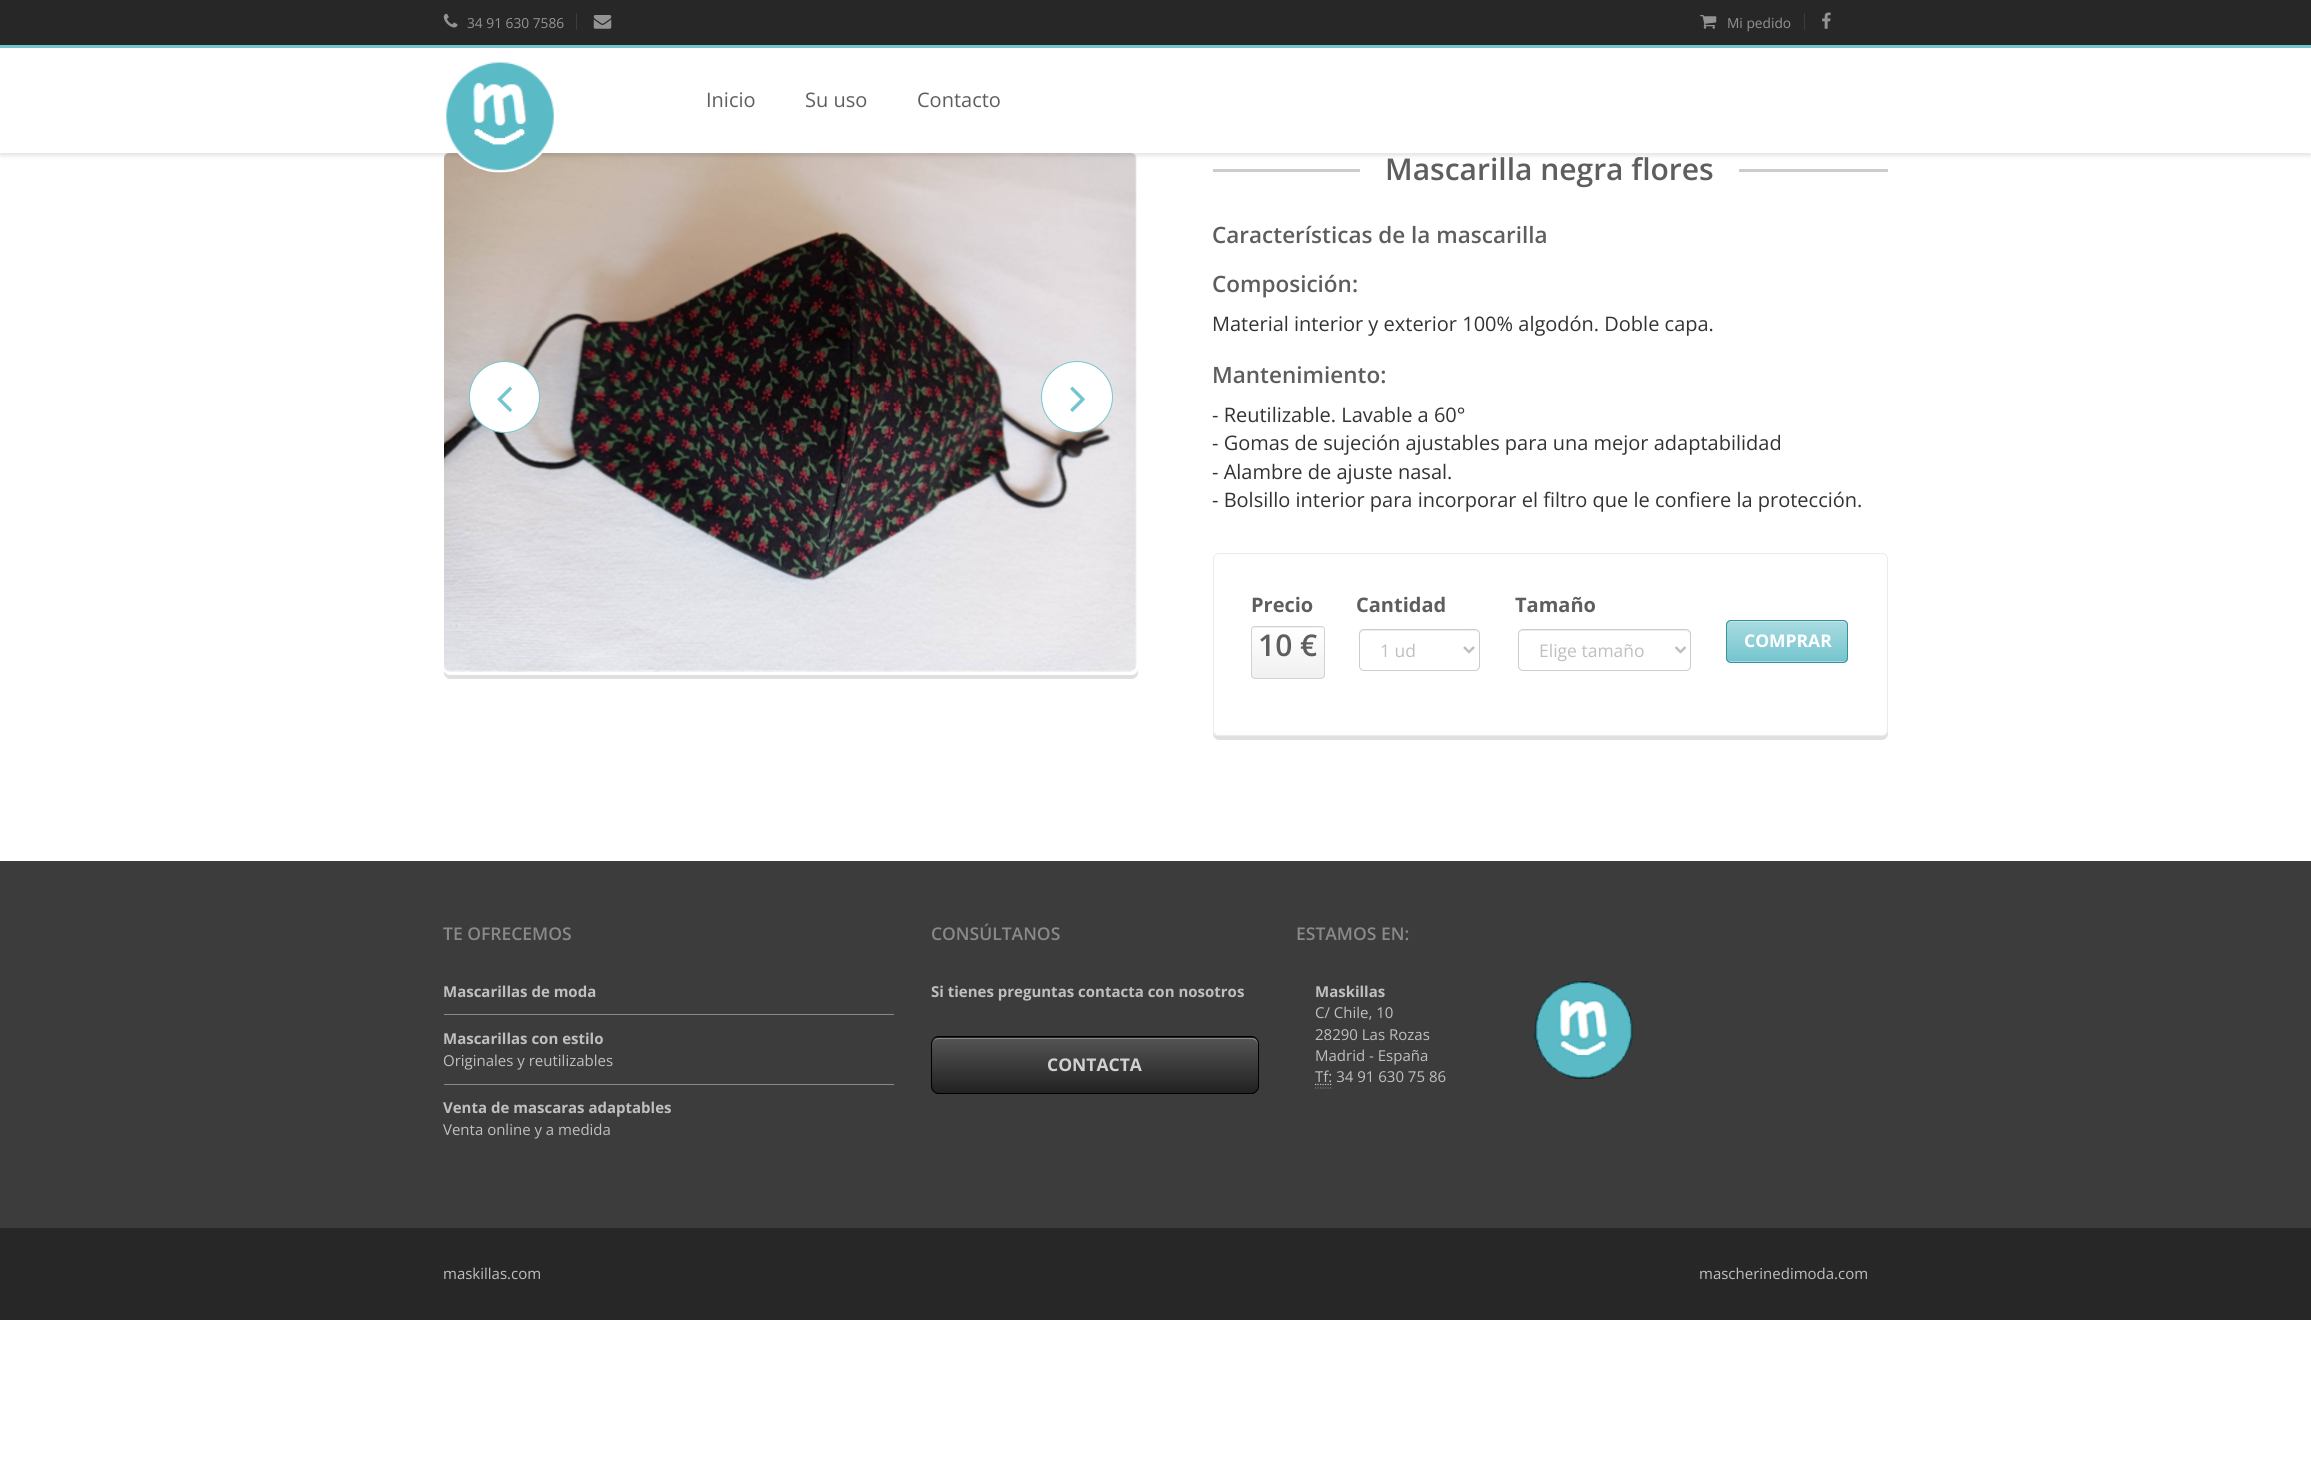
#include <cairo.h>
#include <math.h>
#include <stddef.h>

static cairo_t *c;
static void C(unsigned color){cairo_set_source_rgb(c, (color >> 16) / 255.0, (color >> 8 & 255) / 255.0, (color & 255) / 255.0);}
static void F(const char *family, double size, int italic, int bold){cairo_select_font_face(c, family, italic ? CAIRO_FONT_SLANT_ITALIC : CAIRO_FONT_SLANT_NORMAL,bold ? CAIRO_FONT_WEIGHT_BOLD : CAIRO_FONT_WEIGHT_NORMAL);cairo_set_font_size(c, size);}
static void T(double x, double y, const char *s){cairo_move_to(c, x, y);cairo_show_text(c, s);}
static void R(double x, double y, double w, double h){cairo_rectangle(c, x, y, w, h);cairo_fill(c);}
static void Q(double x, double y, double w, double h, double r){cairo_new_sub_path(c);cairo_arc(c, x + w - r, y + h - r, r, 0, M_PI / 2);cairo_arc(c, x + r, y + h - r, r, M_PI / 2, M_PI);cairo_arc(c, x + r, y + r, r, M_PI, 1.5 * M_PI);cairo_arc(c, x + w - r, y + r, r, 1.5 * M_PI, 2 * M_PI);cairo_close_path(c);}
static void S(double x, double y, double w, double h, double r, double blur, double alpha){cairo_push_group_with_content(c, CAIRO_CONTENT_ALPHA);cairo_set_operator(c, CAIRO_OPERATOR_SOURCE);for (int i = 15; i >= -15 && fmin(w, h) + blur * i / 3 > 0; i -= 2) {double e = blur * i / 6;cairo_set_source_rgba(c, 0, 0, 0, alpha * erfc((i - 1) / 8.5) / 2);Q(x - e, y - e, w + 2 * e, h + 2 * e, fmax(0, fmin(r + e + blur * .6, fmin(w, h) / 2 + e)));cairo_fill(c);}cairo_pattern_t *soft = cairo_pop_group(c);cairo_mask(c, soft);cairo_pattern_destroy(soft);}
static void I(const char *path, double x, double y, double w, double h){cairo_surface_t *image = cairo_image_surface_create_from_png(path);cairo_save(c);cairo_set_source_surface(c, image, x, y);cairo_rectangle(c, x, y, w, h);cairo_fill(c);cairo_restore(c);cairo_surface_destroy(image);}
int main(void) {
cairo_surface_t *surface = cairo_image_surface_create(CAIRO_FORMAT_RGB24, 2311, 1479);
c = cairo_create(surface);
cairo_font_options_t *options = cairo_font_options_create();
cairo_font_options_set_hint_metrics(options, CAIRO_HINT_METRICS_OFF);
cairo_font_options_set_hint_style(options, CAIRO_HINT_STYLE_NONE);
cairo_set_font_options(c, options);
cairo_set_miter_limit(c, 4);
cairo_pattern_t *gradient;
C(0xffffff);
cairo_paint(c);
C(0x272727);
R(0,0,2311,45);
C(0x3c3c3c);
R(576,13,1,17);
I("1.png",443,13,15,15);
F("Open Sans",13.75,0,0);
C(0x939393);
T(467,28,"34 91 630 7586");
I("2.png",593,15,19,14);
C(0x3c3c3c);
R(1804,13,1,17);
I("3.png",1700,15,17,14);
C(0x939393);
T(1727,28,"Mi pedido");
I("4.png",1822,12,9,17);
C(0x75c5cf);
R(0,45,2311,3);
C(0xe0e0e0);
cairo_new_path(c);
cairo_move_to(c,444,671);
cairo_line_to(c,444,673);
cairo_curve_to(c,444,676,447,679,450,679);
cairo_line_to(c,1132,679);
cairo_curve_to(c,1135,679,1138,676,1138,673);
cairo_line_to(c,1138,162);
cairo_line_to(c,1138,160);
cairo_line_to(c,1138,669);
cairo_curve_to(c,1138,672,1135,675,1131,675);
cairo_line_to(c,450,675);
cairo_curve_to(c,447,675,445,673,444,671);
cairo_close_path(c);
cairo_fill(c);
I("6.png",444,153,693,519);
C(0x000000);
S(0,51,2311,105,0,2,.1);
C(0xffffff);
R(0,48,2311,105);
I("5.png",446,62,108,111);
F("Open Sans",20,0,0);
C(0x5e5e5e);
T(706,107,"Inicio");
T(805,107,"Su uso");
T(917,107,"Contacto");
C(0xffffff);
Q(469.5,361.5,70,71,35);
cairo_fill_preserve(c);
C(0x75c5cf);
cairo_set_line_width(c,1);
cairo_stroke(c);
I("7.png",497,386,15,26);
C(0xffffff);
cairo_arc(c,1077,397,35.5,0,2 * M_PI);
cairo_fill_preserve(c);
C(0x75c5cf);
cairo_stroke(c);
I("8.png",1070,386,15,26);
C(0xcccccc);
R(1213,169,675,3);
C(0xffffff);
R(1360,169,379,3);
F("Open Sans SemiBold",30,0,0);
C(0x5e5e5e);
T(1385,180,"Mascarilla negra flores");
F("Open Sans SemiBold",22.5,0,0);
T(1212,243,"Características de la mascarilla");
T(1212,292,"Composición:");
F("Open Sans",20,0,0);
C(0x333333);
T(1212,331,"Material interior y exterior 100% algodón. Doble capa.");
F("Open Sans SemiBold",22.5,0,0);
C(0x5e5e5e);
T(1212,383,"Mantenimiento:");
F("Open Sans",20,0,0);
C(0x333333);
T(1212,422,"- Reutilizable. Lavable a 60°");
T(1212,450,"- Gomas de sujeción ajustables para una mejor adaptabilidad");
T(1212,479,"- Alambre de ajuste nasal.");
T(1212,507,"- Bolsillo interior para incorporar el filtro que le confiere la protección.");
C(0xe0e0e0);
cairo_new_path(c);
cairo_move_to(c,1213,732);
cairo_line_to(c,1213,734);
cairo_curve_to(c,1213,737,1216,740,1219,740);
cairo_line_to(c,1882,740);
cairo_curve_to(c,1885,740,1888,737,1888,734);
cairo_line_to(c,1888,562);
cairo_line_to(c,1888,560);
cairo_line_to(c,1888,730);
cairo_curve_to(c,1888,733,1885,736,1881,736);
cairo_line_to(c,1219,736);
cairo_curve_to(c,1216,736,1214,735,1213,732);
cairo_close_path(c);
cairo_fill(c);
C(0xffffff);
Q(1213.5,553.5,674,182,5.5);
cairo_fill_preserve(c);
C(0xebebeb);
cairo_stroke(c);
F("Open Sans",20,0,1);
C(0x5e5e5e);
T(1251,612,"Precio");
cairo_save(c);
Q(1251,626,74,53,4);
cairo_clip(c);
gradient = cairo_pattern_create_linear(1288,578,1288,628);
cairo_pattern_add_color_stop_rgba(gradient,0,1,1,1,1);
cairo_pattern_add_color_stop_rgba(gradient,1,0.941,0.941,0.941,1);
cairo_set_source(c,gradient);
cairo_pattern_destroy(gradient);
R(1251,626,74,2);
gradient = cairo_pattern_create_linear(1288,628,1288,678);
cairo_pattern_add_color_stop_rgba(gradient,0,1,1,1,1);
cairo_pattern_add_color_stop_rgba(gradient,1,0.941,0.941,0.941,1);
cairo_set_source(c,gradient);
cairo_pattern_destroy(gradient);
R(1251,628,74,50);
cairo_restore(c);
cairo_set_source_rgba(c,1,1,1,0.3);
cairo_new_path(c);
cairo_move_to(c,1255,629);
cairo_line_to(c,1321,629);
cairo_curve_to(c,1323,629,1324,630,1324,631);
cairo_curve_to(c,1324,625,1312,628,1310,628);
cairo_line_to(c,1255,628);
cairo_line_to(c,1253,630);
cairo_close_path(c);
cairo_fill(c);
Q(1251.5,626.5,73,52,3.5);
C(0xd2d2d2);
cairo_stroke(c);
F("Open Sans SemiBold",30,0,0);
C(0x5e5e5e);
T(1258,656,"10 €");
F("Open Sans",20,0,1);
T(1356,612,"Cantidad");
C(0xececec);
cairo_new_path(c);
cairo_move_to(c,1364,631);
cairo_line_to(c,1475,631);
cairo_curve_to(c,1477,631,1479,633,1479,635);
cairo_curve_to(c,1479,625,1460,630,1456,630);
cairo_line_to(c,1382,630);
cairo_curve_to(c,1379,630,1360,625,1360,635);
cairo_curve_to(c,1360,633,1362,631,1364,631);
cairo_close_path(c);
cairo_fill(c);
Q(1359.5,629.5,120,41,4.5);
C(0xcccccc);
cairo_stroke(c);
cairo_new_path(c);
cairo_move_to(c,1464,647);
cairo_line_to(c,1469,652);
cairo_line_to(c,1474,647);
C(0xbfbfbf);
cairo_set_line_width(c,2.5);
cairo_stroke(c);
F("Open Sans",17.5,0,0);
T(1380,657,"1 ud");
F("Open Sans",20,0,1);
C(0x5e5e5e);
T(1515,612,"Tamaño");
C(0xececec);
cairo_new_path(c);
cairo_move_to(c,1522,631);
cairo_line_to(c,1686,631);
cairo_curve_to(c,1688,631,1690,633,1690,635);
cairo_line_to(c,1690,634);
cairo_curve_to(c,1690,632,1688,630,1686,630);
cairo_line_to(c,1523,630);
cairo_curve_to(c,1521,630,1519,632,1519,634);
cairo_line_to(c,1519,635);
cairo_curve_to(c,1519,633,1520,631,1522,631);
cairo_close_path(c);
cairo_fill(c);
Q(1518.5,629.5,172,41,4.5);
C(0xcccccc);
cairo_set_line_width(c,1);
cairo_stroke(c);
cairo_new_path(c);
cairo_move_to(c,1675.5,647);
cairo_line_to(c,1680.5,652);
cairo_line_to(c,1685.5,647);
C(0xbfbfbf);
cairo_set_line_width(c,2.5);
cairo_stroke(c);
F("Open Sans",17.5,0,0);
T(1539,657,"Elige tamaño");
C(0x75c5cf);
Q(1726,620,122,43,5);
cairo_fill(c);
cairo_save(c);
Q(1726,620,122,43,5);
cairo_clip(c);
gradient = cairo_pattern_create_linear(1787,621,1787,661);
cairo_pattern_add_color_stop_rgba(gradient,0,1,1,1,.38);
cairo_pattern_add_color_stop_rgba(gradient,1,1,1,1,0);
cairo_set_source(c,gradient);
cairo_pattern_destroy(gradient);
R(1726,621,122,38);
gradient = cairo_pattern_create_linear(1787,661,1787,701);
cairo_pattern_add_color_stop_rgba(gradient,0,1,1,1,.38);
cairo_pattern_add_color_stop_rgba(gradient,1,1,1,1,0);
cairo_set_source(c,gradient);
cairo_pattern_destroy(gradient);
R(1726,661,122,2);
cairo_restore(c);
cairo_set_source_rgba(c,1,1,1,0.3);
cairo_new_path(c);
cairo_move_to(c,1731,622);
cairo_line_to(c,1842,622);
cairo_curve_to(c,1845,622,1846,624,1846,626);
cairo_curve_to(c,1846,616,1827,621,1824,621);
cairo_line_to(c,1750,621);
cairo_curve_to(c,1747,621,1728,616,1728,626);
cairo_curve_to(c,1728,624,1729,622,1731,622);
cairo_close_path(c);
cairo_fill(c);
Q(1726.5,620.5,121,42,4.5);
C(0x35929e);
cairo_set_line_width(c,1);
cairo_stroke(c);
F("Open Sans",17.5,0,1);
C(0xffffff);
T(1744,647,"COMPRAR");
C(0x3c3c3c);
R(0,861,2311,367);
F("Open Sans SemiBold",17.5,0,0);
C(0x898989);
T(443,940,"TE OFRECEMOS");
R(444,1014,450,1);
F("Open Sans",15,0,1);
C(0xbfbfbf);
T(443,997,"Mascarillas de moda");
C(0x898989);
R(444,1084,450,1);
C(0xbfbfbf);
T(443,1044,"Mascarillas con estilo");
F("Open Sans",15,0,0);
T(443,1066,"Originales y reutilizables");
F("Open Sans",15,0,1);
T(443,1113,"Venta de mascaras adaptables");
F("Open Sans",15,0,0);
T(443,1135,"Venta online y a medida");
F("Open Sans SemiBold",17.5,0,0);
C(0x898989);
T(931,940,"CONSÚLTANOS");
F("Open Sans",15,0,1);
C(0xbfbfbf);
T(931,997,"Si tienes preguntas contacta con nosotros");
C(0x000000);
Q(931,1036,328,58,8);
cairo_fill(c);
cairo_save(c);
Q(931,1036,328,58,8);
cairo_clip(c);
gradient = cairo_pattern_create_linear(1095,983,1095,1038);
cairo_pattern_add_color_stop_rgba(gradient,0,1,1,1,.33);
cairo_pattern_add_color_stop_rgba(gradient,1,1,1,1,.13);
cairo_set_source(c,gradient);
cairo_pattern_destroy(gradient);
R(931,1036,328,2);
gradient = cairo_pattern_create_linear(1095,1038,1095,1093);
cairo_pattern_add_color_stop_rgba(gradient,0,1,1,1,.33);
cairo_pattern_add_color_stop_rgba(gradient,1,1,1,1,.13);
cairo_set_source(c,gradient);
cairo_pattern_destroy(gradient);
R(931,1038,328,55);
cairo_restore(c);
C(0x878787);
cairo_new_path(c);
cairo_move_to(c,939,1039);
cairo_line_to(c,1251,1039);
cairo_curve_to(c,1255,1039,1258,1042,1258,1045);
cairo_line_to(c,1258,1044);
cairo_curve_to(c,1258,1041,1255,1038,1252,1038);
cairo_line_to(c,939,1038);
cairo_curve_to(c,937,1038,935,1039,934,1041);
cairo_curve_to(c,935,1040,937,1039,939,1039);
cairo_close_path(c);
cairo_fill(c);
Q(931.5,1036.5,327,57,7.5);
C(0x000000);
cairo_stroke(c);
F("Open Sans",17.5,0,1);
C(0xd1d1d1);
T(1047,1071,"CONTACTA");
F("Open Sans SemiBold",17.5,0,0);
C(0x898989);
T(1296,940,"ESTAMOS EN:");
F("Open Sans",15,0,1);
C(0xbfbfbf);
T(1315,997,"Maskillas");
F("Open Sans",15,0,0);
T(1315,1018,"C/ Chile, 10");
T(1315,1040,"28290 Las Rozas");
T(1315,1061,"Madrid - España");
T(1315,1082,"Tf: 34 91 630 75 86");
cairo_new_path(c);
cairo_move_to(c,1315,1088);
cairo_line_to(c,1332.5,1088);
C(0x777777);
cairo_set_line_width(c,1.2);
cairo_set_dash(c,(double[]){1.25,1.25},2,0);
cairo_stroke(c);
cairo_new_path(c);
cairo_move_to(c,1315,1084.5);
cairo_line_to(c,1332.5,1084.5);
C(0xc1c1c1);
cairo_stroke(c);
I("9.png",1533,981,100,98);
C(0x272727);
R(0,1228,2311,92);
C(0xbfbfbf);
T(443,1279,"maskillas.com");
T(1699,1279,"mascherinedimoda.com");
cairo_surface_write_to_png(surface, "o.png");
cairo_font_options_destroy(options);
cairo_destroy(c);
cairo_surface_destroy(surface);
return 0;
}
